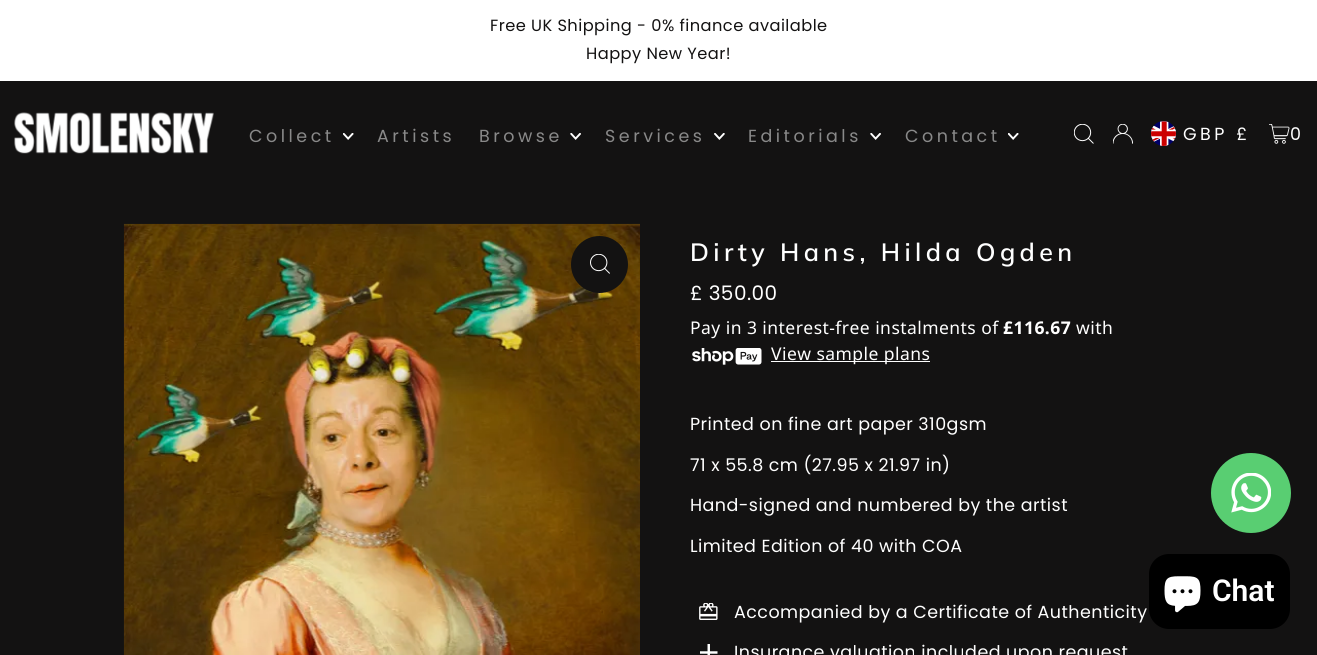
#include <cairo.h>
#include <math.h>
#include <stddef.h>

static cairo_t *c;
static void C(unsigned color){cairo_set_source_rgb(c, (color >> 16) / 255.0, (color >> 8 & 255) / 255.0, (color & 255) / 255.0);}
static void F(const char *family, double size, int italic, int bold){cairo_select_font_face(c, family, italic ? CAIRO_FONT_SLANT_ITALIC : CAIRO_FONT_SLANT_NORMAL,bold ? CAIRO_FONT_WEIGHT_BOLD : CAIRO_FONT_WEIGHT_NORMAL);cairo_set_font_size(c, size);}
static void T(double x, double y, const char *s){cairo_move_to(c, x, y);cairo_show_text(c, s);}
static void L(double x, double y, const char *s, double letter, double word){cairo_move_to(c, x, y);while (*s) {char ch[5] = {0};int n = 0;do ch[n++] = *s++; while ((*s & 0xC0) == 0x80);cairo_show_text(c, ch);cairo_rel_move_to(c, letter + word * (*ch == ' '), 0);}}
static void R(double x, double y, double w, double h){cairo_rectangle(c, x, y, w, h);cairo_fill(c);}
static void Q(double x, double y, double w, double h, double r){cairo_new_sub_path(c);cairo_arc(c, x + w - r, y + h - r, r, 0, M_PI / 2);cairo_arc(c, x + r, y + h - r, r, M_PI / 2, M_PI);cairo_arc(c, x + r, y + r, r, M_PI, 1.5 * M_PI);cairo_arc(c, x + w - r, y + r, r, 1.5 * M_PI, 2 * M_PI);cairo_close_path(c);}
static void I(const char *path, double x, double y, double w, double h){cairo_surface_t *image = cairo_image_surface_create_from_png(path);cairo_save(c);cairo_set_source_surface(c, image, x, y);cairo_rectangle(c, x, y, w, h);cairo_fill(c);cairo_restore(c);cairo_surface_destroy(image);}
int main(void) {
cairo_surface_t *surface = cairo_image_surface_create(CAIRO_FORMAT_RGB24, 1317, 655);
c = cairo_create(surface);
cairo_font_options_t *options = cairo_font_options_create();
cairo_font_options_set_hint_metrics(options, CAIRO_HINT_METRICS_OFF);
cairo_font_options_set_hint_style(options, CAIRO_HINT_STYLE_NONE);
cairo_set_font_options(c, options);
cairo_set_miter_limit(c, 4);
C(0x131212);
cairo_paint(c);
C(0xffffff);
R(0,0,1317,81);
F("Poppins",16.25,0,0);
C(0x131212);
L(490,31,"Free UK Shipping - 0% finance available",.45,0);
L(586,59,"Happy New Year!",.45,0);
I("1.png",14,112,200,42);
F("Poppins",17.5,0,0);
C(0x898989);
L(249,142,"Collect",3.5,0);
I("2.png",343,133,11,7);
L(377,142,"Artists",3.5,0);
L(479,142,"Browse",3.5,0);
I("3.png",570,133,11,7);
L(605,142,"Services",3.5,0);
I("4.png",714,133,11,7);
L(748,142,"Editorials",3.5,0);
I("3.png",870,133,11,7);
L(905,142,"Contact",3.5,0);
I("2.png",1008,133,11,7);
I("5.png",1074,124,20,20);
I("6.png",1113,124,20,20);
I("7.png",1151,121,25,25);
C(0xffffff);
L(1183,140,"GBP £",3.5,0);
I("8.png",1269,124,21,20);
L(1290,140,"0",3.5,0);
I("9.png",123,223,517,432);
C(0x131212);
cairo_arc(c,599.5,264.5,28.5,0,2 * M_PI);
cairo_fill(c);
I("10.png",590,254,20,20);
F("Muli SemiBold",25,0,0);
C(0xffffff);
L(690,261,"Dirty Hans, Hilda Ogden",4.4,0);
F("Poppins",20,0,0);
L(690,300,"£ 350.00",.45,0);
F("Noto Sans",17.5,0,0);
L(690,334,"Pay in 3 interest-free instalments of",.45,0);
F("Noto Sans",17.5,0,1);
L(1003,334,"£116.67",.45,0);
F("Noto Sans",17.5,0,0);
L(1076,334,"with",.45,0);
I("11.png",692,348,70,17);
R(771,361,159,1);
L(771,360,"View sample plans",.45,0);
F("Poppins",17.5,0,0);
L(690,430,"Printed on fine art paper 310gsm",.45,0);
L(690,471,"71 x 55.8 cm (27.95 x 21.97 in)",.45,0);
L(690,511,"Hand-signed and numbered by the artist",.45,0);
L(690,552,"Limited Edition of 40 with COA",.45,0);
I("12.png",699,603,19,17);
L(734,618,"Accompanied by a Certificate of Authenticity",.45,0);
I("13.png",700,644,18,11);
L(734,658,"Insurance valuation included upon request",.45,0);
C(0x59ce72);
cairo_new_path(c);
cairo_arc(c,1251,493,40,0,2 * M_PI);
cairo_fill(c);
I("14.png",1231,473,40,40);
C(0x000000);
Q(1149,554,141,75,20);
cairo_fill(c);
I("15.png",1164,576,37,37);
F("Roboto SemiBold",30,0,0);
C(0xffffff);
T(1212,601,"Chat");
cairo_surface_write_to_png(surface, "o.png");
cairo_font_options_destroy(options);
cairo_destroy(c);
cairo_surface_destroy(surface);
return 0;
}
